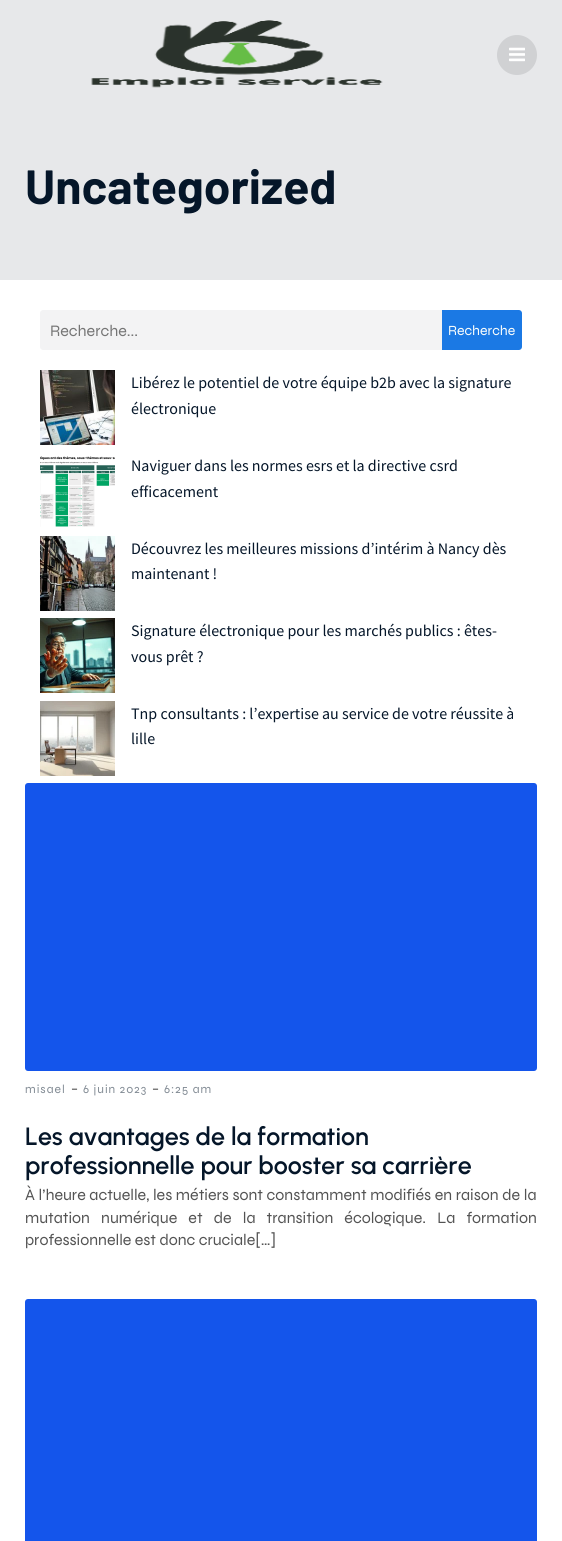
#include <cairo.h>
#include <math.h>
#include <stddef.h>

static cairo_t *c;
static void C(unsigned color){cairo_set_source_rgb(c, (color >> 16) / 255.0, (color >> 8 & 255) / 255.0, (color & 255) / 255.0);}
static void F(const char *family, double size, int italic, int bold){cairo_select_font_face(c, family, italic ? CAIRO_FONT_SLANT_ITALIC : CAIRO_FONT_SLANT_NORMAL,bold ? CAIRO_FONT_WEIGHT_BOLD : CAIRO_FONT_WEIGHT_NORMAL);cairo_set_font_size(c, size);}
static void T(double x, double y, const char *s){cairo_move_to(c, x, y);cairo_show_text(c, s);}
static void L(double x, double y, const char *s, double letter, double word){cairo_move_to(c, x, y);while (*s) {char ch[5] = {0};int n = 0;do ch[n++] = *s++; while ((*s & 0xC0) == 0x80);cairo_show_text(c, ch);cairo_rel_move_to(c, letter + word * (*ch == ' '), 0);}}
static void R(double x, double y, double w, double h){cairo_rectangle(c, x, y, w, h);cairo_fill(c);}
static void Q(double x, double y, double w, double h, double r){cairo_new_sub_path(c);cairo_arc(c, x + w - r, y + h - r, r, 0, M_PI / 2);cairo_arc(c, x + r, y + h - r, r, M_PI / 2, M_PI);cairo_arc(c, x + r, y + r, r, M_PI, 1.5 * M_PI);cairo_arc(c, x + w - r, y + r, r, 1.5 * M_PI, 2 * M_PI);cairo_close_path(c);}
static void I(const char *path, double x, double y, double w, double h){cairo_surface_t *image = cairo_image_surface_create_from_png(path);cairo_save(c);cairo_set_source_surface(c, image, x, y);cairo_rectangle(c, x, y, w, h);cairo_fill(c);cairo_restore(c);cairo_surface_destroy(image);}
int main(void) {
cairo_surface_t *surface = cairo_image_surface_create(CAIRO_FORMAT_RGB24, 562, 1541);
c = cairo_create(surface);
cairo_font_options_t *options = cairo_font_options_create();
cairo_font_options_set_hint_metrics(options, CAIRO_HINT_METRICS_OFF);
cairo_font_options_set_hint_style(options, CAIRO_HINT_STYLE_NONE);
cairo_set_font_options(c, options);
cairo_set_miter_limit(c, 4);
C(0xffffff);
cairo_paint(c);
C(0xe7e8ea);
R(0,0,562,280);
I("1.png",91,20,292,68);
C(0xd0d1d3);
cairo_arc(c,517,55,20,0,2 * M_PI);
cairo_fill(c);
I("2.png",509,47,16,15);
F("Barlow",48,0,1);
C(0x051629);
T(25,204,"Uncategorized");
C(0xf3f3f4);
cairo_new_path(c);
cairo_move_to(c,43,310);
cairo_line_to(c,442,310);
cairo_line_to(c,442,350);
cairo_line_to(c,43,350);
cairo_curve_to(c,41.5,350,40,348.5,40,347);
cairo_line_to(c,40,313);
cairo_curve_to(c,40,311.5,41.5,310,43,310);
cairo_close_path(c);
cairo_fill(c);
F("Syne",16,0,0);
C(0x757575);
T(50,336,"Recherche...");
C(0x1b79e4);
cairo_new_path(c);
cairo_move_to(c,442,310);
cairo_line_to(c,519,310);
cairo_curve_to(c,520.5,310,522,311.5,522,313);
cairo_line_to(c,522,347);
cairo_curve_to(c,522,348.5,520.5,350,519,350);
cairo_line_to(c,442,350);
cairo_close_path(c);
cairo_fill(c);
F("Syne",14,0,0);
C(0xfbfefc);
T(448,335,"Recherche");
I("3.png",40,370,75,75);
F("Source Sans Pro",16,0,0);
C(0x051629);
T(131,388,"Libérez le potentiel de votre équipe b2b avec la signature");
T(131,414,"électronique");
I("4.png",40,456,75,71);
T(131,471,"Naviguer dans les normes esrs et la directive csrd");
T(131,497,"efficacement");
I("5.png",40,536,75,75);
T(131,554,"Découvrez les meilleures missions d’intérim à Nancy dès");
T(131,579,"maintenant !");
I("6.png",40,618,75,75);
T(131,636,"Signature électronique pour les marchés publics : êtes-");
T(131,662,"vous prêt ?");
I("7.png",40,701,75,75);
T(131,719,"Tnp consultants : l’expertise au service de votre réussite à");
T(131,744,"lille");
C(0x1455eb);
Q(25,783,512,288,3);
cairo_fill(c);
F("Syne",12,0,0);
C(0x828b94);
L(25,1093,"misael",1,0);
F("Urbanist",16,0,0);
C(0x535353);
T(71,1094,"-");
F("Syne",12,0,0);
C(0x828b94);
L(83,1093,"6 juin 2023",1,0);
F("Urbanist",16,0,0);
C(0x535353);
T(152,1094,"-");
F("Syne",12,0,0);
C(0x828b94);
L(164,1093,"6:25 am",1,0);
F("Urbanist SemiBold",25,0,0);
C(0x051629);
T(25,1145,"Les avantages de la formation");
T(25,1174,"professionnelle pour booster sa carrière");
F("Syne",16,0,0);
C(0x535353);
L(25,1200,"À l’heure actuelle, les métiers sont constamment modifiés en raison de la",0,.25);
L(25,1223,"mutation numérique et de la transition écologique. La formation",0,7.75);
T(25,1245,"professionnelle est donc cruciale[…]");
C(0x1455eb);
Q(25,1299,512,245,3);
cairo_fill(c);
cairo_surface_write_to_png(surface, "o.png");
cairo_font_options_destroy(options);
cairo_destroy(c);
cairo_surface_destroy(surface);
return 0;
}
